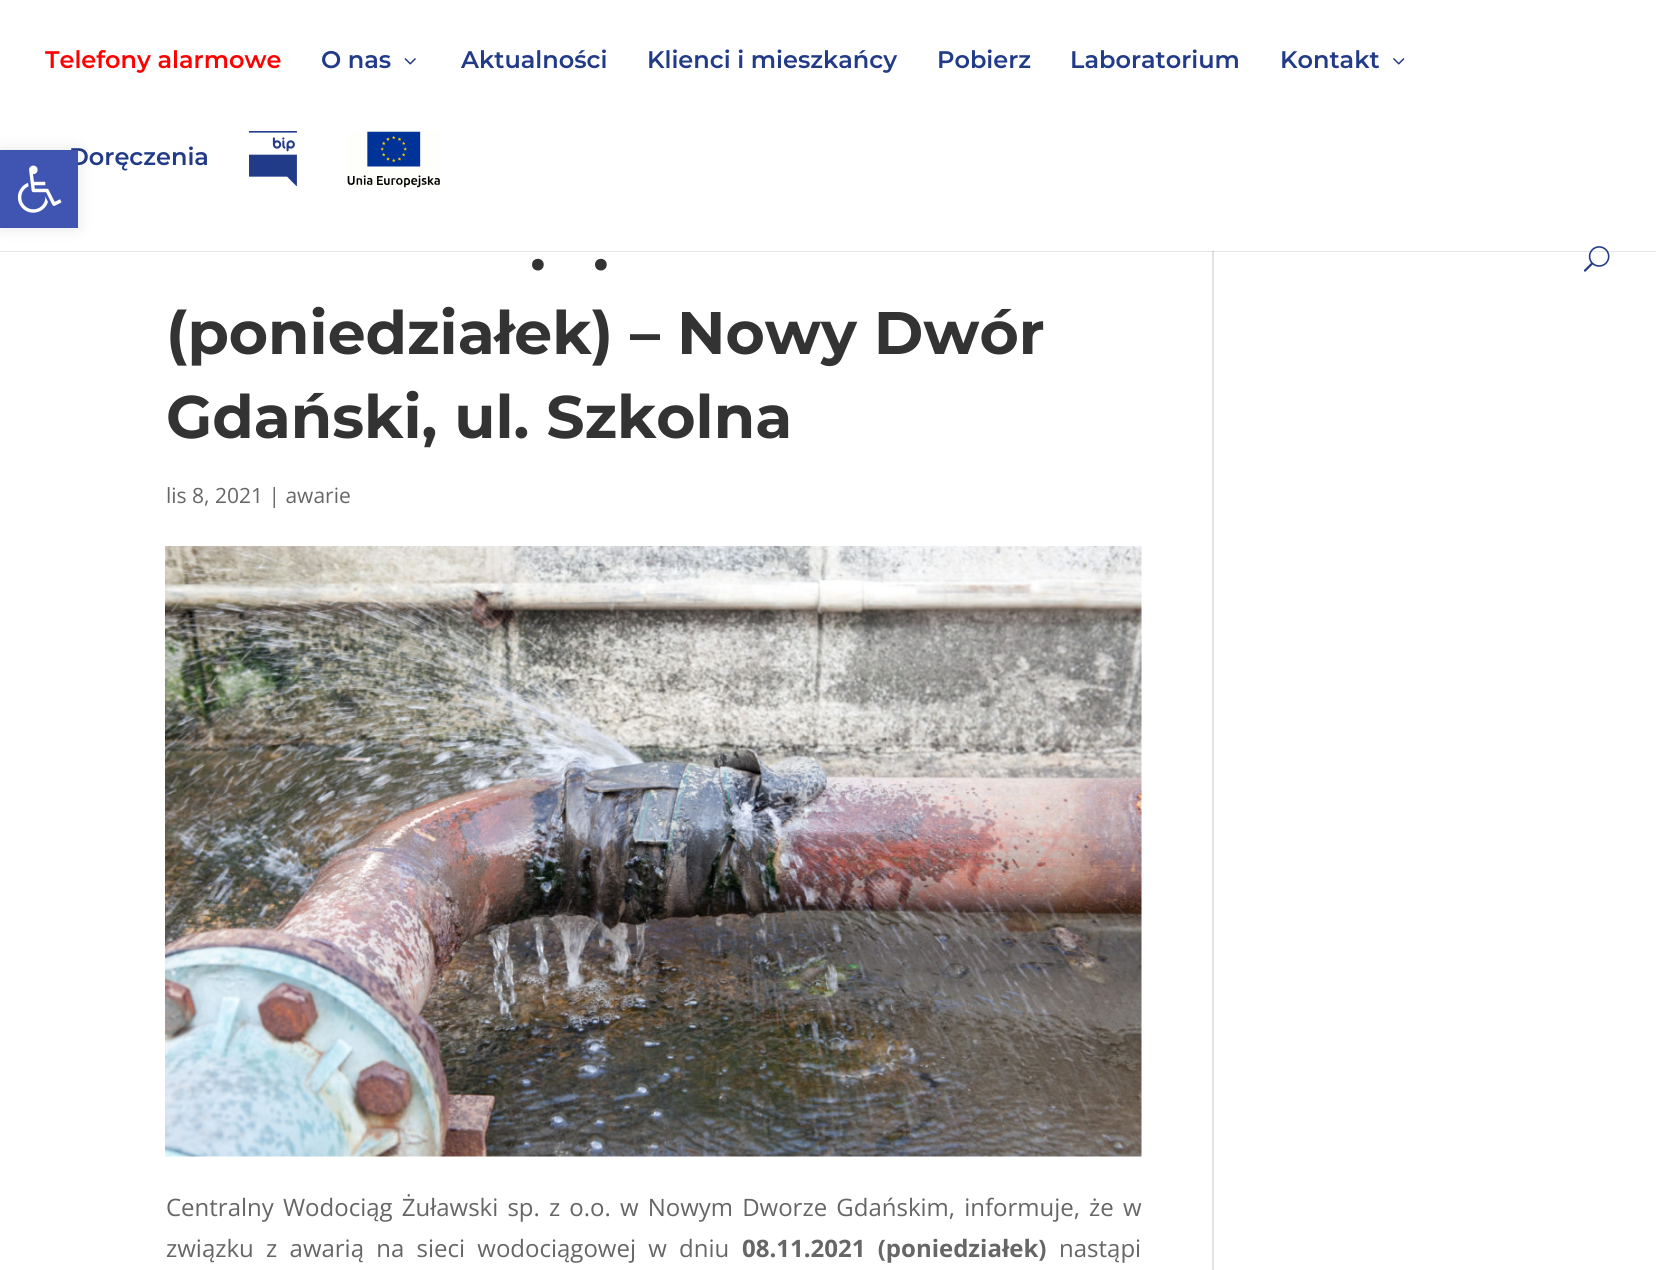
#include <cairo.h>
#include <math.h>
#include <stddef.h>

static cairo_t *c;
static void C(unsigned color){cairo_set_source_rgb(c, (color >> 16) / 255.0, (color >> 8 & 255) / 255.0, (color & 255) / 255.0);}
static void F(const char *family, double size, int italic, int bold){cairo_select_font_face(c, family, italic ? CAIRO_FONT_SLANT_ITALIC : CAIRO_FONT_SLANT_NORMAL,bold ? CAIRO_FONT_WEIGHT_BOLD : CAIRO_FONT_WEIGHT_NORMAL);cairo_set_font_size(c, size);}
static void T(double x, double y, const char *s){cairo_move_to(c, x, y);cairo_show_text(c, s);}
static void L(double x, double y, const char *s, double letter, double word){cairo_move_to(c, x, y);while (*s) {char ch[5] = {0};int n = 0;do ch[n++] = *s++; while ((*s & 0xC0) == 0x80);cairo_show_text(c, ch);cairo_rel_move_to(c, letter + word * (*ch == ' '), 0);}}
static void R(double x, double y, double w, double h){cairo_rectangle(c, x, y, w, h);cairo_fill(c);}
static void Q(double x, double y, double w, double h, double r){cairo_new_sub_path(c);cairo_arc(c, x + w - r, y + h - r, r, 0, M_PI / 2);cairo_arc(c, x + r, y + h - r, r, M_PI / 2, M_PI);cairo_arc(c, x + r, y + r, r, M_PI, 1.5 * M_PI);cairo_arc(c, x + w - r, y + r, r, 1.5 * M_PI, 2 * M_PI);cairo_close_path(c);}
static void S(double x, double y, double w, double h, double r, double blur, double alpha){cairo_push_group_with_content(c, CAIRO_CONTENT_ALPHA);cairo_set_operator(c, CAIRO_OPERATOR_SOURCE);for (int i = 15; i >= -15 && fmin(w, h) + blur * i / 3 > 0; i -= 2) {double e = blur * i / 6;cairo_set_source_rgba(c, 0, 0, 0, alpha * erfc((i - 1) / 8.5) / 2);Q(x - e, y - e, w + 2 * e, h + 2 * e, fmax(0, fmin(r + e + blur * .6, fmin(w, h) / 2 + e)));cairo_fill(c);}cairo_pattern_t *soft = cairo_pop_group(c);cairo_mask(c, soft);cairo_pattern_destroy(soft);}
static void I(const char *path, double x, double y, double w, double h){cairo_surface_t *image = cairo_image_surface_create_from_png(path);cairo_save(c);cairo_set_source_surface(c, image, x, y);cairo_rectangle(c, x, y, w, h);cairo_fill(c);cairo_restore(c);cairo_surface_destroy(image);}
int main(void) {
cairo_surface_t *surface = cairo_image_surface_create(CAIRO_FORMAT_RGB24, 1656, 1270);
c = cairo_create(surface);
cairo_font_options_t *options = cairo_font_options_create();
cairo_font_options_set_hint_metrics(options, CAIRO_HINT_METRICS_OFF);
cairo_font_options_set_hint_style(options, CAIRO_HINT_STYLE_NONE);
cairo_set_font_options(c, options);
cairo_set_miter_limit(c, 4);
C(0xffffff);
cairo_paint(c);
C(0xe2e2e2);
R(1212,251,2,1019);
cairo_set_source_rgba(c,0,0,0,0.1);
R(0,251,1656,1);
F("Montserrat SemiBold",24,0,0);
C(0xff0000);
T(45,68,"Telefony alarmowe");
C(0x223b88);
T(321,68,"O nas");
I("1.png",404,58,12,7);
T(461,68,"Aktualności");
T(647,68,"Klienci i mieszkańcy");
T(937,68,"Pobierz");
T(1070,68,"Laboratorium");
T(1280,68,"Kontakt");
I("2.png",1393,58,12,7);
T(69,165,"Doręczenia");
I("3.png",249,131,48,55);
I("4.png",347,131,93,57);
I("5.png",1583,246,27,26);
F("Montserrat",60,0,1);
C(0x333333);
T(530,270,".");
T(593,270,".");
T(166,354,"(poniedziałek) – Nowy Dwór");
T(166,438,"Gdański, ul. Szkolna");
F("Open Sans",21,0,0);
C(0x666666);
T(166,503,"lis 8, 2021 | awarie");
I("6.png",165,546,977,611);
F("Open Sans",24,0,0);
L(166,1216,"Centralny Wodociąg Żuławski sp. z o.o. w Nowym Dworze Gdańskim, informuje, że w",0,2.9);
L(166,1257,"związku z awarią na sieci wodociągowej w dniu",0,6);
F("Open Sans",24,0,1);
L(742,1257,"08.11.2021 (poniedziałek)",0,6);
F("Open Sans",24,0,0);
T(1059,1257,"nastąpi");
C(0x000000);
S(0,150,78,78,0,7.5,.1);
C(0x4054b2);
R(0,150,78,78);
I("7.png",17,165,45,48);
cairo_surface_write_to_png(surface, "o.png");
cairo_font_options_destroy(options);
cairo_destroy(c);
cairo_surface_destroy(surface);
return 0;
}
